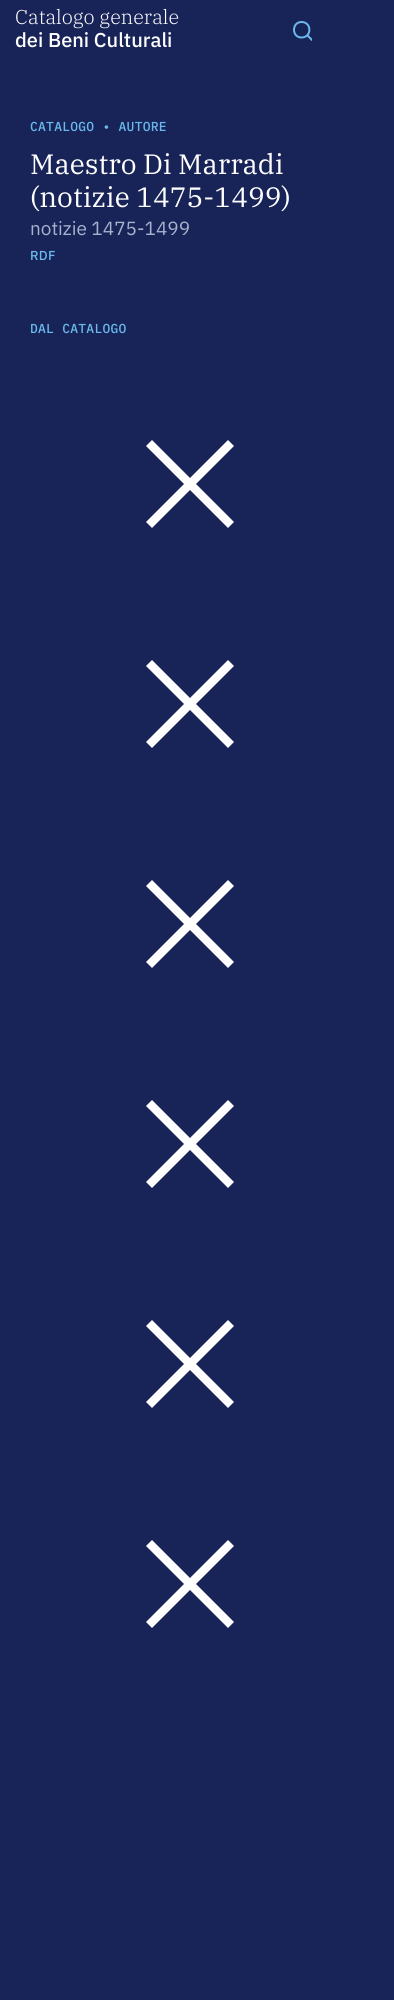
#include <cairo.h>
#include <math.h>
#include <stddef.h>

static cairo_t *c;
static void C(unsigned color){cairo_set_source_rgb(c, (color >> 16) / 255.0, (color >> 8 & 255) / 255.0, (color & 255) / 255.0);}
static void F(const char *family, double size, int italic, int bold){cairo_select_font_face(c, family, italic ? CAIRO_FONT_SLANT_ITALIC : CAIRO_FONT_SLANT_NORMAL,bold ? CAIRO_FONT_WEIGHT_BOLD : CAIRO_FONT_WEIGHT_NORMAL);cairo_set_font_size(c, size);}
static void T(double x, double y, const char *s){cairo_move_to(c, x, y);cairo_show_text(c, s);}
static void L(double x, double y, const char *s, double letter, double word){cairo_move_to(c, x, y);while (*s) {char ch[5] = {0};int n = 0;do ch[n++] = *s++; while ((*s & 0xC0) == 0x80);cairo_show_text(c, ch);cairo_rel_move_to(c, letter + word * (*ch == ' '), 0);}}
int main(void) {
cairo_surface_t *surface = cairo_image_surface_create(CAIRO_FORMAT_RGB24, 394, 2000);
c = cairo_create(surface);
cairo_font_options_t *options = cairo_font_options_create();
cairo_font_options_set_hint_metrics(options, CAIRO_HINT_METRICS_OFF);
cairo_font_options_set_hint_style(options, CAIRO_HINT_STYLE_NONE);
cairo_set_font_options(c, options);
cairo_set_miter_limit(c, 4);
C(0x182358);
cairo_paint(c);
F("IBM Plex Serif Light",20,0,0);
C(0xffffff);
T(15,24,"Catalogo generale");
F("IBM Plex Sans Medium",20,0,0);
T(15,47,"dei Beni Culturali");
cairo_new_path(c);
cairo_move_to(c,301.5,37.5);
cairo_curve_to(c,312,37.5,312,22,301.5,22);
cairo_curve_to(c,291.5,22,291.5,37.5,301.5,37.5);
cairo_close_path(c);
C(0x69b9ec);
cairo_stroke(c);
cairo_save(c);
cairo_rectangle(c,293,21,19,20);
cairo_clip(c);
cairo_new_path(c);
cairo_move_to(c,307.5,35.5);
cairo_line_to(c,312.5,40.5);
cairo_stroke(c);
cairo_restore(c);
F("IBM Plex Mono Medium",13,0,0);
L(30,131,"CATALOGO • AUTORE",.25,0);
F("IBM Plex Serif",28,0,0);
C(0xffffff);
T(30,174,"Maestro Di Marradi");
T(30,207,"(notizie 1475-1499)");
F("IBM Plex Sans",19,0,0);
C(0xa7b2cc);
T(30,235,"notizie 1475-1499");
F("IBM Plex Sans Medium",13,0,0);
C(0x69b9ec);
L(30,260,"RDF",.25,0);
F("IBM Plex Mono Medium",13,0,0);
L(30,333,"DAL CATALOGO",.25,0);
C(0xffffff);
cairo_new_path(c);
cairo_move_to(c,234,522);
cairo_line_to(c,196,484);
cairo_line_to(c,234,446);
cairo_line_to(c,228,440);
cairo_line_to(c,190,478);
cairo_line_to(c,152,440);
cairo_line_to(c,146,446);
cairo_line_to(c,184,484);
cairo_line_to(c,146,522);
cairo_line_to(c,152,528);
cairo_line_to(c,190,490);
cairo_line_to(c,228,528);
cairo_close_path(c);
cairo_fill(c);
cairo_new_path(c);
cairo_move_to(c,234,742);
cairo_line_to(c,196,704);
cairo_line_to(c,234,666);
cairo_line_to(c,228,660);
cairo_line_to(c,190,698);
cairo_line_to(c,152,660);
cairo_line_to(c,146,666);
cairo_line_to(c,184,704);
cairo_line_to(c,146,742);
cairo_line_to(c,152,748);
cairo_line_to(c,190,710);
cairo_line_to(c,228,748);
cairo_close_path(c);
cairo_fill(c);
cairo_new_path(c);
cairo_move_to(c,234,962);
cairo_line_to(c,196,924);
cairo_line_to(c,234,886);
cairo_line_to(c,228,880);
cairo_line_to(c,190,918);
cairo_line_to(c,152,880);
cairo_line_to(c,146,886);
cairo_line_to(c,184,924);
cairo_line_to(c,146,962);
cairo_line_to(c,152,968);
cairo_line_to(c,190,930);
cairo_line_to(c,228,968);
cairo_close_path(c);
cairo_fill(c);
cairo_new_path(c);
cairo_move_to(c,234,1182);
cairo_line_to(c,196,1144);
cairo_line_to(c,234,1106);
cairo_line_to(c,228,1100);
cairo_line_to(c,190,1138);
cairo_line_to(c,152,1100);
cairo_line_to(c,146,1106);
cairo_line_to(c,184,1144);
cairo_line_to(c,146,1182);
cairo_line_to(c,152,1188);
cairo_line_to(c,190,1150);
cairo_line_to(c,228,1188);
cairo_close_path(c);
cairo_fill(c);
cairo_new_path(c);
cairo_move_to(c,234,1402);
cairo_line_to(c,196,1364);
cairo_line_to(c,234,1326);
cairo_line_to(c,228,1320);
cairo_line_to(c,190,1358);
cairo_line_to(c,152,1320);
cairo_line_to(c,146,1326);
cairo_line_to(c,184,1364);
cairo_line_to(c,146,1402);
cairo_line_to(c,152,1408);
cairo_line_to(c,190,1370);
cairo_line_to(c,228,1408);
cairo_close_path(c);
cairo_fill(c);
cairo_new_path(c);
cairo_move_to(c,234,1622);
cairo_line_to(c,196,1584);
cairo_line_to(c,234,1546);
cairo_line_to(c,228,1540);
cairo_line_to(c,190,1578);
cairo_line_to(c,152,1540);
cairo_line_to(c,146,1546);
cairo_line_to(c,184,1584);
cairo_line_to(c,146,1622);
cairo_line_to(c,152,1628);
cairo_line_to(c,190,1590);
cairo_line_to(c,228,1628);
cairo_close_path(c);
cairo_fill(c);
cairo_surface_write_to_png(surface, "o.png");
cairo_font_options_destroy(options);
cairo_destroy(c);
cairo_surface_destroy(surface);
return 0;
}
